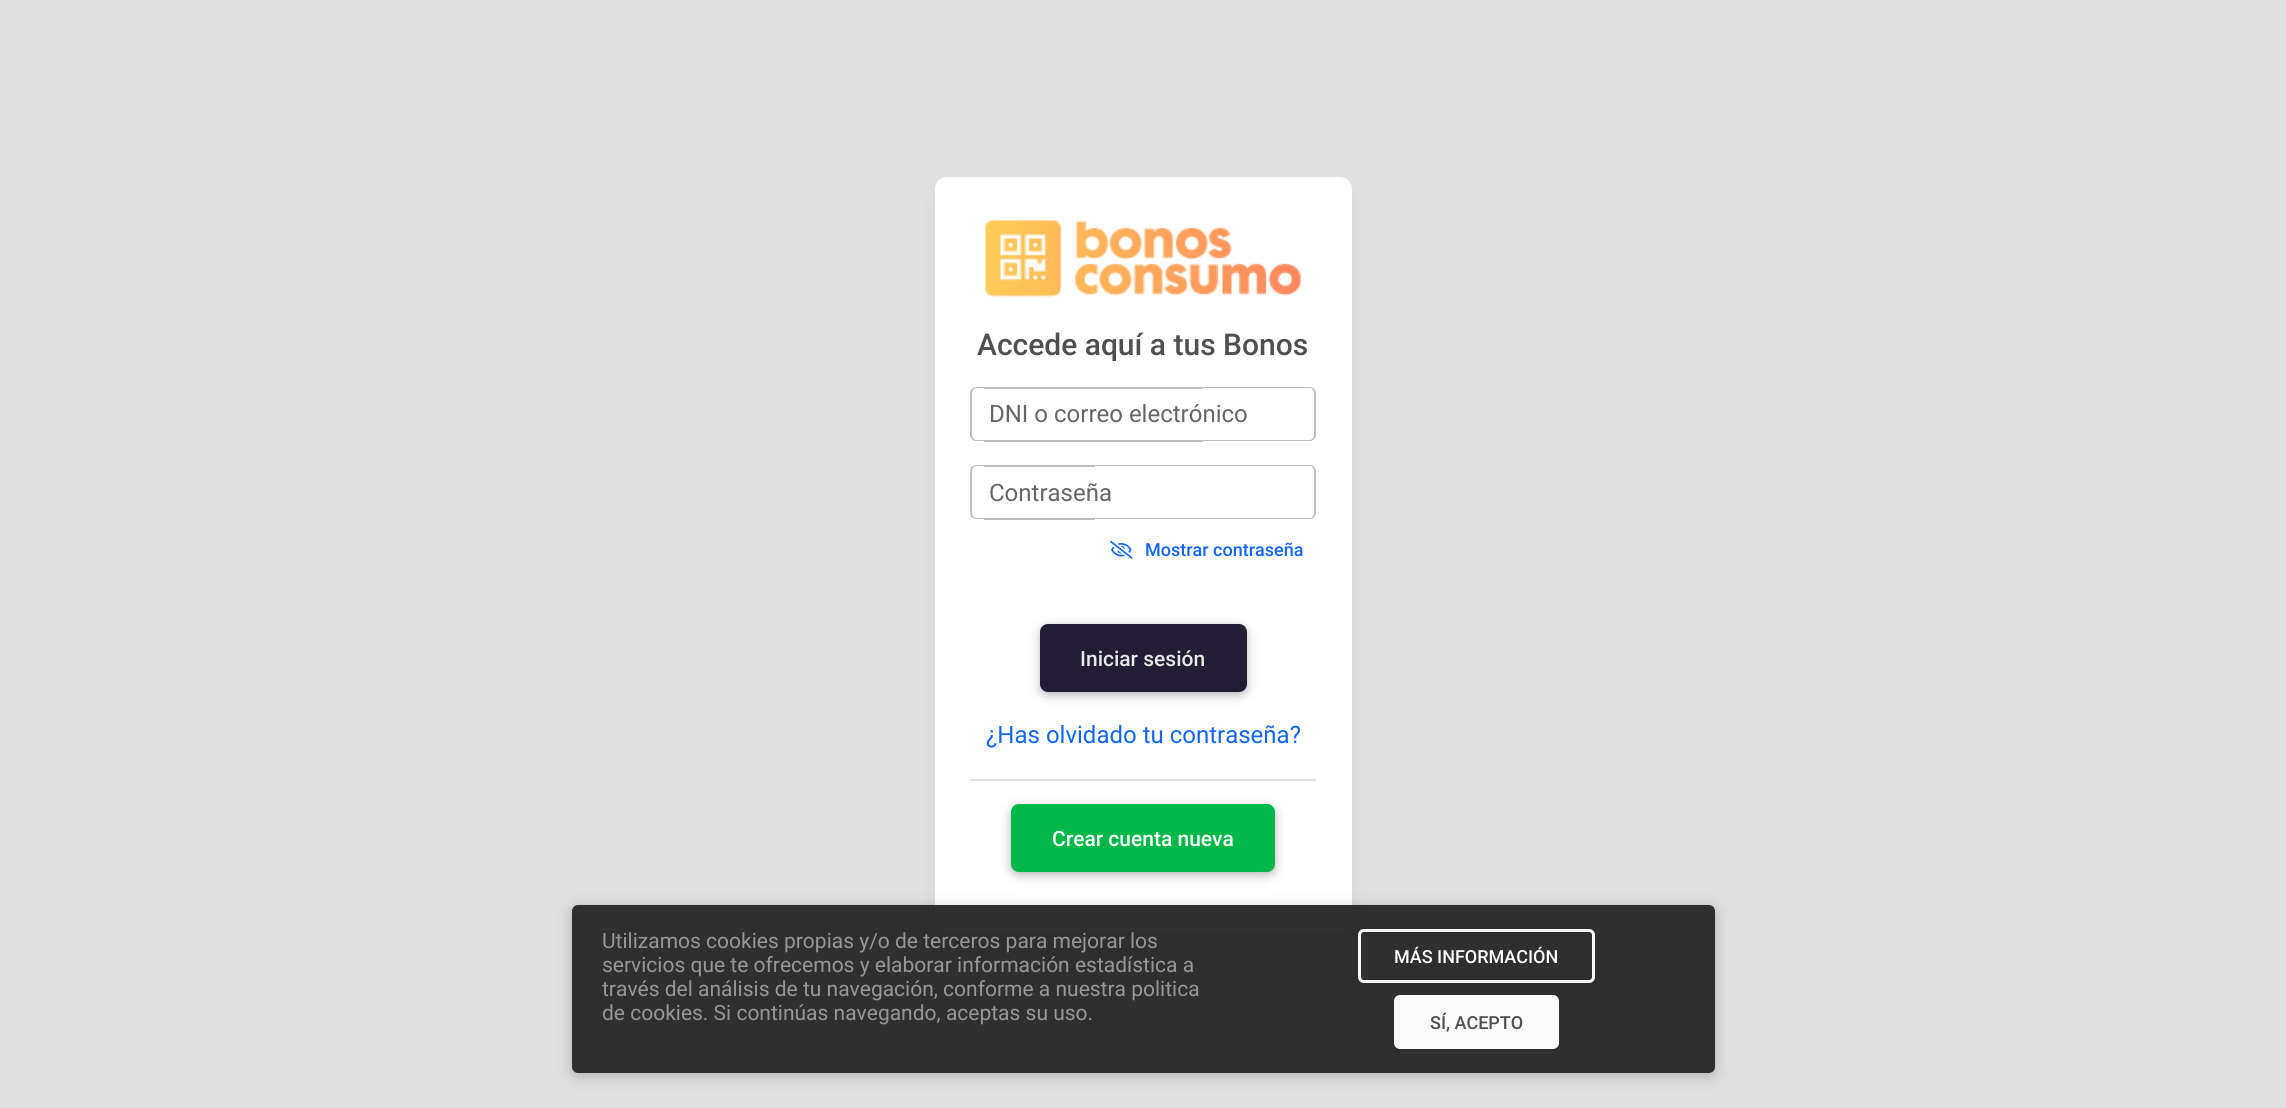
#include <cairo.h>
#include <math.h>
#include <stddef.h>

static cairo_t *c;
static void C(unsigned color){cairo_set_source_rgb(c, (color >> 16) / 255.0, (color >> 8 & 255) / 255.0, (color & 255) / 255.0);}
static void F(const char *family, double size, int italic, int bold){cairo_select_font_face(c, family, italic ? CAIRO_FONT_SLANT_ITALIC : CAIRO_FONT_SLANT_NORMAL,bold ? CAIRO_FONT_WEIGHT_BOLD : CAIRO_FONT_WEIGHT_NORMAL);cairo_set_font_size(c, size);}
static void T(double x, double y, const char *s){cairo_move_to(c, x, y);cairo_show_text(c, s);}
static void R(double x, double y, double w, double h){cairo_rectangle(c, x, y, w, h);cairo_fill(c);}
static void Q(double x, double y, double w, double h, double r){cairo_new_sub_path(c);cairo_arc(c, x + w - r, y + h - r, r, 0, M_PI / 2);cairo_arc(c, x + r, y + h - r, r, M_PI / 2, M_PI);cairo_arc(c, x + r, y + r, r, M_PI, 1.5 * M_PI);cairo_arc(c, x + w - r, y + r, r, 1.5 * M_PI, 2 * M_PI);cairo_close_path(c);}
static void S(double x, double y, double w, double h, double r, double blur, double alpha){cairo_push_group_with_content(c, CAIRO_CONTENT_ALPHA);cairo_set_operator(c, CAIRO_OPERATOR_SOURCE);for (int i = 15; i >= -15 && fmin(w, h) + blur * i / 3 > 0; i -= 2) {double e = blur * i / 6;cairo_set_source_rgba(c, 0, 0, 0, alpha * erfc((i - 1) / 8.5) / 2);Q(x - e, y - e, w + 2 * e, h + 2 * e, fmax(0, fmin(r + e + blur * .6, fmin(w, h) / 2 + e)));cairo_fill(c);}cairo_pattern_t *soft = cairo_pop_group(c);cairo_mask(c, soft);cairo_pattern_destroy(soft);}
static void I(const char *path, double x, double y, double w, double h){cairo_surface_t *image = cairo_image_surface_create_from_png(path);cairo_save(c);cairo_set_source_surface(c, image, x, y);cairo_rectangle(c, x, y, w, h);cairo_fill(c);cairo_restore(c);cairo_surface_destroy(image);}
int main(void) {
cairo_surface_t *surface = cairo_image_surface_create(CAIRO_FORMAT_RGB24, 2286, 1108);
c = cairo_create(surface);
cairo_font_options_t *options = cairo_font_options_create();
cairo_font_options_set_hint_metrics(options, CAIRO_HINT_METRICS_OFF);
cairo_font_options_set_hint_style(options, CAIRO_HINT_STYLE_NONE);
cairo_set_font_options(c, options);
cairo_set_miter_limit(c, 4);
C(0xe0e0e0);
cairo_paint(c);
C(0x000000);
S(938,186,411,749,9,4.5,.05);
S(939,197,408,745,8,11,.07);
C(0xffffff);
Q(935,177,417,755,12);
cairo_fill(c);
I("1.png",984,220,318,78);
F("Roboto Medium",30,0,0);
C(0x4f4f4f);
T(977,355,"Accede aquí a tus Bonos");
C(0xbdbdbd);
cairo_set_fill_rule(c,CAIRO_FILL_RULE_EVEN_ODD);
cairo_new_path(c);
cairo_move_to(c,976,387);
cairo_line_to(c,984,387);
cairo_line_to(c,984,441);
cairo_line_to(c,976,441);
cairo_curve_to(c,973,441,970,438,970,435);
cairo_line_to(c,970,393);
cairo_curve_to(c,970,390,973,387,976,387);
cairo_close_path(c);
cairo_move_to(c,976,388);
cairo_line_to(c,984,388);
cairo_line_to(c,984,440);
cairo_line_to(c,976,440);
cairo_curve_to(c,974,440,972,437,972,435);
cairo_line_to(c,972,393);
cairo_curve_to(c,972,391,974,388,976,388);
cairo_close_path(c);
cairo_fill(c);
R(984,387,219,2);
R(984,440,219,2);
F("Roboto",24,0,0);
C(0x666666);
T(989,422,"DNI o correo electrónico");
C(0xbdbdbd);
cairo_new_path(c);
cairo_move_to(c,1203,387);
cairo_line_to(c,1310,387);
cairo_curve_to(c,1313,387,1316,390,1316,393);
cairo_line_to(c,1316,435);
cairo_curve_to(c,1316,438,1313,441,1310,441);
cairo_line_to(c,1203,441);
cairo_close_path(c);
cairo_move_to(c,1203,388);
cairo_line_to(c,1310,388);
cairo_curve_to(c,1312,388,1314,391,1314,393);
cairo_line_to(c,1314,435);
cairo_curve_to(c,1314,437,1312,440,1310,440);
cairo_line_to(c,1203,440);
cairo_close_path(c);
cairo_fill(c);
cairo_new_path(c);
cairo_move_to(c,976,465);
cairo_line_to(c,984,465);
cairo_line_to(c,984,519);
cairo_line_to(c,976,519);
cairo_curve_to(c,973,519,970,516,970,513);
cairo_line_to(c,970,471);
cairo_curve_to(c,970,468,973,465,976,465);
cairo_close_path(c);
cairo_move_to(c,976,466);
cairo_line_to(c,984,466);
cairo_line_to(c,984,518);
cairo_line_to(c,976,518);
cairo_curve_to(c,974,518,972,515,972,513);
cairo_line_to(c,972,471);
cairo_curve_to(c,972,469,974,466,976,466);
cairo_close_path(c);
cairo_fill(c);
R(984,465,111,2);
R(984,518,111,2);
C(0x666666);
T(989,501,"Contraseña");
C(0xbdbdbd);
cairo_new_path(c);
cairo_move_to(c,1095,465);
cairo_line_to(c,1310,465);
cairo_curve_to(c,1313,465,1316,468,1316,471);
cairo_line_to(c,1316,513);
cairo_curve_to(c,1316,516,1313,519,1310,519);
cairo_line_to(c,1095,519);
cairo_close_path(c);
cairo_move_to(c,1095,466);
cairo_line_to(c,1310,466);
cairo_curve_to(c,1312,466,1314,469,1314,471);
cairo_line_to(c,1314,513);
cairo_curve_to(c,1314,515,1312,518,1310,518);
cairo_line_to(c,1095,518);
cairo_close_path(c);
cairo_fill(c);
I("2.png",1110,540,23,19);
F("Roboto Medium",18,0,0);
C(0x1266f1);
T(1145,556,"Mostrar contraseña");
C(0x000000);
S(1040,627,207,68,8,7.5,.1);
S(1040,627,207,68,8,4,.2);
C(0x221c35);
Q(1040,624,207,68,8);
cairo_fill(c);
F("Roboto Medium",21,0,0);
C(0xe8e8e8);
T(1080,666,"Iniciar sesión");
C(0xe0e0e0);
R(971,779,345,2);
F("Roboto",24,0,0);
C(0x1266f1);
T(986,743,"¿Has olvidado tu contraseña?");
C(0x000000);
S(1011,807,264,68,8,7.5,.1);
S(1011,807,264,68,8,4,.2);
C(0x00b74a);
Q(1011,804,264,68,8);
cairo_fill(c);
F("Roboto Medium",21,0,0);
C(0xffffff);
T(1052,846,"Crear cuenta nueva");
cairo_save(c);
cairo_new_path(c);
cairo_move_to(c,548,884);
cairo_line_to(c,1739,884);
cairo_line_to(c,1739,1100);
cairo_line_to(c,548,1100);
cairo_close_path(c);
cairo_move_to(c,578,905);
cairo_line_to(c,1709,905);
cairo_curve_to(c,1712.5,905,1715,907.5,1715,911);
cairo_line_to(c,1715,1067);
cairo_curve_to(c,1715,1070.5,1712.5,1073,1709,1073);
cairo_line_to(c,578,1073);
cairo_curve_to(c,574.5,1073,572,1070.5,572,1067);
cairo_line_to(c,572,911);
cairo_curve_to(c,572,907.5,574.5,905,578,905);
cairo_close_path(c);
cairo_clip(c);
C(0x000000);
S(572,908,1143,168,6,7.5,.21);
cairo_restore(c);
cairo_set_source_rgba(c,0.149,0.149,0.149,0.95);
Q(572,905,1143,168,6);
cairo_fill(c);
F("Roboto",21,0,0);
C(0x979797);
T(602,948,"Utilizamos cookies propias y/o de terceros para mejorar los");
T(602,972,"servicios que te ofrecemos y elaborar información estadística a");
T(602,996,"través del análisis de tu navegación, conforme a nuestra politica");
T(602,1020,"de cookies. Si continúas navegando, aceptas su uso.");
Q(1359.5,930.5,234,51,4.5);
C(0xfbfbfb);
cairo_set_line_width(c,3);
cairo_stroke(c);
F("Roboto Medium",18,0,0);
C(0xffffff);
T(1394,963,"MÁS INFORMACIÓN");
C(0xfbfbfb);
Q(1394,995,165,54,6);
cairo_fill(c);
C(0x4f4f4f);
T(1430,1029,"SÍ, ACEPTO");
cairo_surface_write_to_png(surface, "o.png");
cairo_font_options_destroy(options);
cairo_destroy(c);
cairo_surface_destroy(surface);
return 0;
}
